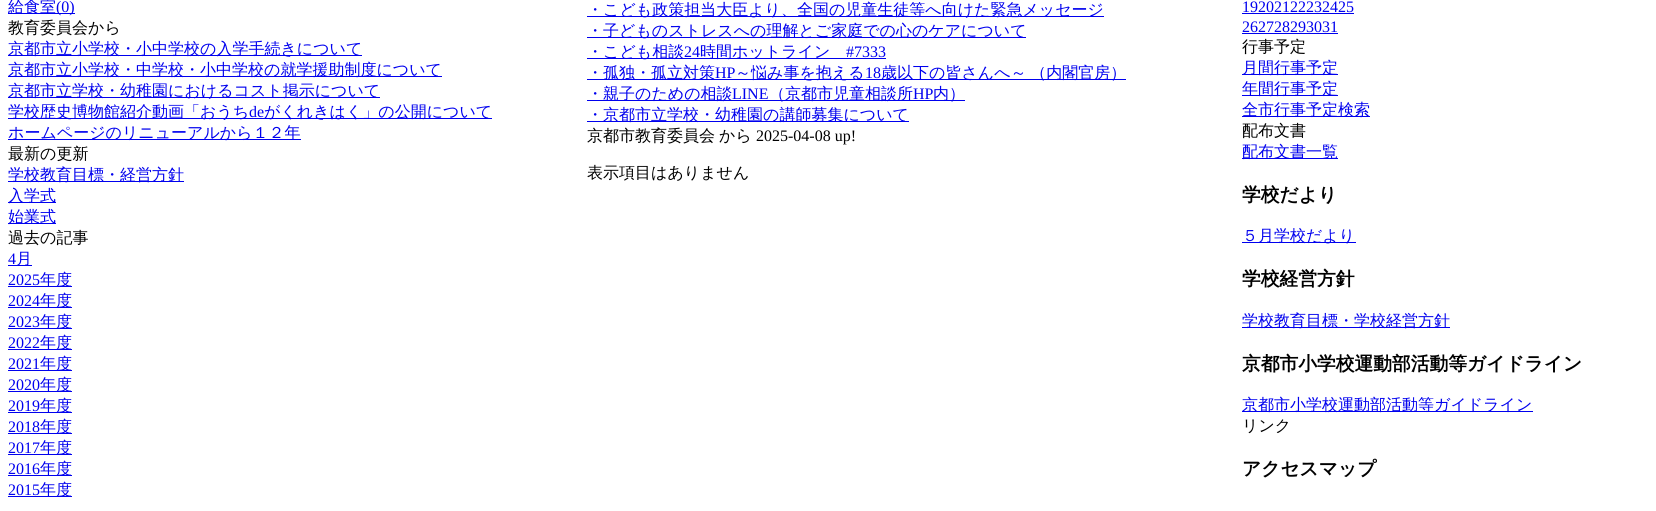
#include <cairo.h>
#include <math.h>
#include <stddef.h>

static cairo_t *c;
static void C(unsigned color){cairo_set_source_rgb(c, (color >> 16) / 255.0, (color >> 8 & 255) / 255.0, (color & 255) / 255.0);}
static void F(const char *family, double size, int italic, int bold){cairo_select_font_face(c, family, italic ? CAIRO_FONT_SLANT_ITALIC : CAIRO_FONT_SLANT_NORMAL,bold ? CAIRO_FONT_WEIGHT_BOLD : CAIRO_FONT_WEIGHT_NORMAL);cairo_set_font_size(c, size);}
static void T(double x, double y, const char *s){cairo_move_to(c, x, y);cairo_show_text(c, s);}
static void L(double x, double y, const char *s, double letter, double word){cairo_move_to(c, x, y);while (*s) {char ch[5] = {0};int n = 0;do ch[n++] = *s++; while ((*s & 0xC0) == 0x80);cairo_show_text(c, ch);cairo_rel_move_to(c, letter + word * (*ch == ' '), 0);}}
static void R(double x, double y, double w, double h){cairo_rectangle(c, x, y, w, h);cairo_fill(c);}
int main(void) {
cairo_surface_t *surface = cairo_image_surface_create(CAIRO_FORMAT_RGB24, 1656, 511);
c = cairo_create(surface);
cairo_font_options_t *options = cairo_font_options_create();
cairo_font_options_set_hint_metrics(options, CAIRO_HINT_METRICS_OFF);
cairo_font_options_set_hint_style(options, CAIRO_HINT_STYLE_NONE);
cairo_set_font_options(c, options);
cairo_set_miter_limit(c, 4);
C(0xffffff);
cairo_paint(c);
C(0x0000ee);
R(8,13,67,1);
F("WenQuanYi Zen Hei Medium",16,0,0);
T(8,12,"給食室");
F("Liberation Serif",16,0,0);
T(56,12,"(0)");
F("WenQuanYi Zen Hei Medium",16,0,0);
C(0x000000);
T(8,33,"教育委員会から");
C(0x0000ee);
R(8,55,354,1);
T(8,54,"京都市立小学校・小中学校の入学手続きについて");
R(8,76,434,1);
T(8,75,"京都市立小学校・中学校・小中学校の就学援助制度について");
R(8,97,372,1);
T(8,96,"京都市立学校・幼稚園におけるコスト掲示について");
R(8,118,484,1);
T(8,117,"学校歴史博物館紹介動画「おうち");
F("Liberation Serif",16,0,0);
T(249,117,"de");
F("WenQuanYi Zen Hei Medium",16,0,0);
T(264,117,"がくれきはく」の公開について");
R(8,139,293,1);
T(8,138,"ホームページのリニューアルから１２年");
C(0x000000);
T(8,159,"最新の更新");
C(0x0000ee);
R(8,181,176,1);
T(8,180,"学校教育目標・経営方針");
R(8,202,48,1);
T(8,201,"入学式");
R(8,223,48,1);
T(8,222,"始業式");
C(0x000000);
T(8,243,"過去の記事");
F("Liberation Serif",16,0,0);
C(0x0000ee);
T(8,264,"4");
R(8,265,24,1);
F("WenQuanYi Zen Hei Medium",16,0,0);
T(16,264,"月");
F("Liberation Serif",16,0,0);
T(8,285,"2025");
R(8,286,64,1);
F("WenQuanYi Zen Hei Medium",16,0,0);
T(40,285,"年度");
F("Liberation Serif",16,0,0);
T(8,306,"2024");
R(8,307,64,1);
F("WenQuanYi Zen Hei Medium",16,0,0);
T(40,306,"年度");
F("Liberation Serif",16,0,0);
T(8,327,"2023");
R(8,328,64,1);
F("WenQuanYi Zen Hei Medium",16,0,0);
T(40,327,"年度");
F("Liberation Serif",16,0,0);
T(8,348,"2022");
R(8,349,64,1);
F("WenQuanYi Zen Hei Medium",16,0,0);
T(40,348,"年度");
F("Liberation Serif",16,0,0);
T(8,369,"2021");
R(8,370,64,1);
F("WenQuanYi Zen Hei Medium",16,0,0);
T(40,369,"年度");
F("Liberation Serif",16,0,0);
T(8,390,"2020");
R(8,391,64,1);
F("WenQuanYi Zen Hei Medium",16,0,0);
T(40,390,"年度");
F("Liberation Serif",16,0,0);
T(8,411,"2019");
R(8,412,64,1);
F("WenQuanYi Zen Hei Medium",16,0,0);
T(40,411,"年度");
F("Liberation Serif",16,0,0);
T(8,432,"2018");
R(8,433,64,1);
F("WenQuanYi Zen Hei Medium",16,0,0);
T(40,432,"年度");
F("Liberation Serif",16,0,0);
T(8,453,"2017");
R(8,454,64,1);
F("WenQuanYi Zen Hei Medium",16,0,0);
T(40,453,"年度");
F("Liberation Serif",16,0,0);
T(8,474,"2016");
R(8,475,64,1);
F("WenQuanYi Zen Hei Medium",16,0,0);
T(40,474,"年度");
F("Liberation Serif",16,0,0);
T(8,495,"2015");
R(8,496,64,1);
F("WenQuanYi Zen Hei Medium",16,0,0);
T(40,495,"年度");
R(587,16,517,1);
T(587,15,"・こども政策担当大臣より、全国の児童生徒等へ向けた緊急メッセージ");
R(587,37,439,1);
T(587,36,"・子どものストレスへの理解とご家庭での心のケアについて");
R(587,58,299,1);
T(587,57,"・こども相談");
F("Liberation Serif",16,0,0);
T(684,57,"24");
F("WenQuanYi Zen Hei Medium",16,0,0);
T(700,57,"時間ホットライン");
F("Liberation Serif",16,0,0);
T(846,57,"#7333");
R(587,79,539,1);
F("WenQuanYi Zen Hei Medium",16,0,0);
T(587,78,"・孤独・孤立対策");
F("Liberation Serif",16,0,0);
T(715,78,"HP");
F("WenQuanYi Zen Hei Medium",16,0,0);
T(735,78,"～悩み事を抱える");
F("Liberation Serif",16,0,0);
T(865,78,"18");
F("WenQuanYi Zen Hei Medium",16,0,0);
L(881,78,"歳以下の皆さんへ～ （内閣官房）",0,-1);
R(587,100,378,1);
T(587,99,"・親子のための相談");
F("Liberation Serif",16,0,0);
T(732,99,"LINE");
F("WenQuanYi Zen Hei Medium",16,0,0);
T(769,99,"（京都市児童相談所");
F("Liberation Serif",16,0,0);
T(913,99,"HP");
F("WenQuanYi Zen Hei Medium",16,0,0);
T(933,99,"内）");
R(587,121,322,1);
T(587,120,"・京都市立学校・幼稚園の講師募集について");
C(0x000000);
T(587,141,"京都市教育委員会");
T(719,141,"から");
F("Liberation Serif",16,0,0);
T(756,141,"2025-04-08 up!");
F("WenQuanYi Zen Hei Medium",16,0,0);
T(587,178,"表示項目はありません");
F("Liberation Serif",16,0,0);
C(0x0000ee);
T(1242,12,"19202122232425");
R(1242,13,112,1);
T(1242,32,"262728293031");
R(1242,33,96,1);
F("WenQuanYi Zen Hei Medium",16,0,0);
C(0x000000);
T(1242,52,"行事予定");
C(0x0000ee);
R(1242,74,96,1);
T(1242,73,"月間行事予定");
R(1242,95,96,1);
T(1242,94,"年間行事予定");
R(1242,116,128,1);
T(1242,115,"全市行事予定検索");
C(0x000000);
T(1242,136,"配布文書");
C(0x0000ee);
R(1242,158,96,1);
T(1242,157,"配布文書一覧");
F("WenQuanYi Zen Hei",18.75,0,1);
C(0x000000);
T(1242,201,"学校だより");
C(0x0000ee);
R(1242,242,114,1);
F("WenQuanYi Zen Hei Medium",16,0,0);
T(1242,241,"５月学校だより");
F("WenQuanYi Zen Hei",18.75,0,1);
C(0x000000);
T(1242,285,"学校経営方針");
C(0x0000ee);
R(1242,327,208,1);
F("WenQuanYi Zen Hei Medium",16,0,0);
T(1242,326,"学校教育目標・学校経営方針");
F("WenQuanYi Zen Hei",18.75,0,1);
C(0x000000);
T(1242,370,"京都市小学校運動部活動等ガイドライン");
C(0x0000ee);
R(1242,411,291,1);
F("WenQuanYi Zen Hei Medium",16,0,0);
T(1242,410,"京都市小学校運動部活動等ガイドライン");
C(0x000000);
T(1242,431,"リンク");
F("WenQuanYi Zen Hei",18.75,0,1);
T(1242,475,"アクセスマップ");
cairo_surface_write_to_png(surface, "o.png");
cairo_font_options_destroy(options);
cairo_destroy(c);
cairo_surface_destroy(surface);
return 0;
}
